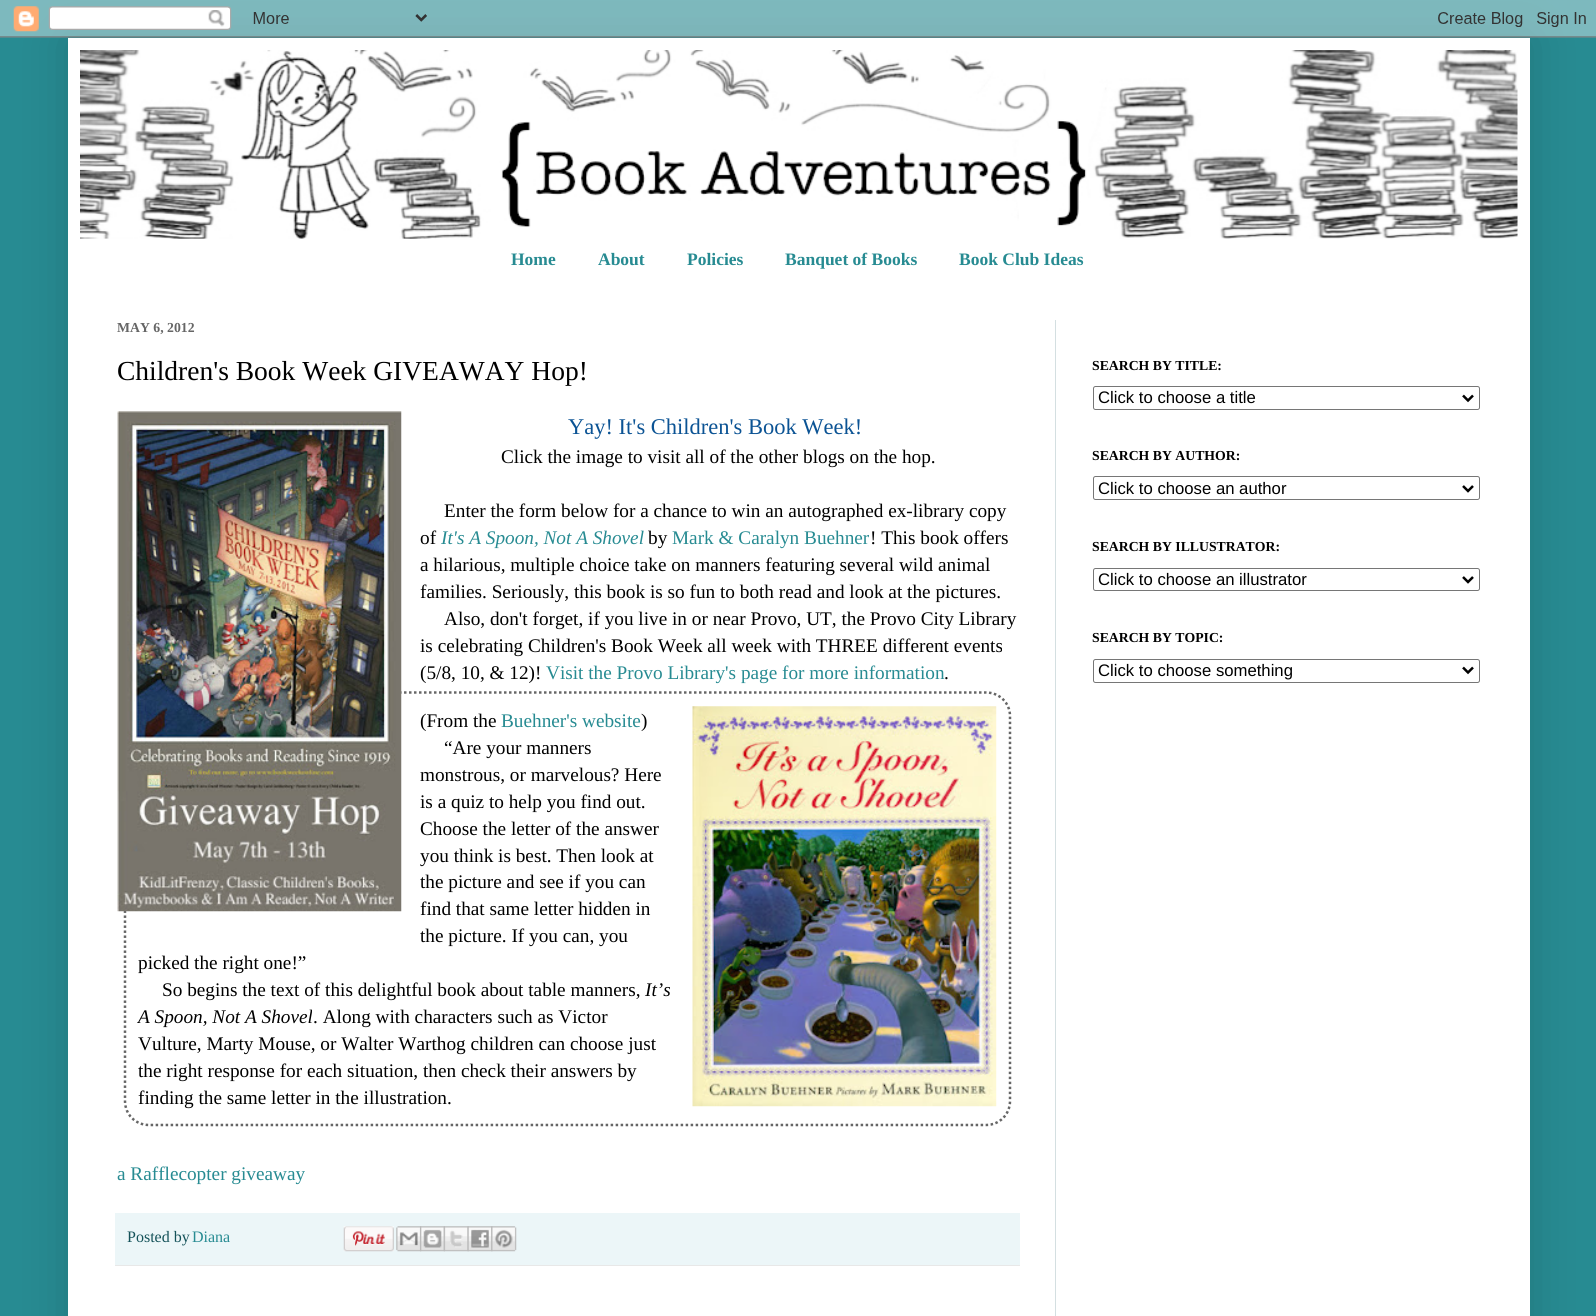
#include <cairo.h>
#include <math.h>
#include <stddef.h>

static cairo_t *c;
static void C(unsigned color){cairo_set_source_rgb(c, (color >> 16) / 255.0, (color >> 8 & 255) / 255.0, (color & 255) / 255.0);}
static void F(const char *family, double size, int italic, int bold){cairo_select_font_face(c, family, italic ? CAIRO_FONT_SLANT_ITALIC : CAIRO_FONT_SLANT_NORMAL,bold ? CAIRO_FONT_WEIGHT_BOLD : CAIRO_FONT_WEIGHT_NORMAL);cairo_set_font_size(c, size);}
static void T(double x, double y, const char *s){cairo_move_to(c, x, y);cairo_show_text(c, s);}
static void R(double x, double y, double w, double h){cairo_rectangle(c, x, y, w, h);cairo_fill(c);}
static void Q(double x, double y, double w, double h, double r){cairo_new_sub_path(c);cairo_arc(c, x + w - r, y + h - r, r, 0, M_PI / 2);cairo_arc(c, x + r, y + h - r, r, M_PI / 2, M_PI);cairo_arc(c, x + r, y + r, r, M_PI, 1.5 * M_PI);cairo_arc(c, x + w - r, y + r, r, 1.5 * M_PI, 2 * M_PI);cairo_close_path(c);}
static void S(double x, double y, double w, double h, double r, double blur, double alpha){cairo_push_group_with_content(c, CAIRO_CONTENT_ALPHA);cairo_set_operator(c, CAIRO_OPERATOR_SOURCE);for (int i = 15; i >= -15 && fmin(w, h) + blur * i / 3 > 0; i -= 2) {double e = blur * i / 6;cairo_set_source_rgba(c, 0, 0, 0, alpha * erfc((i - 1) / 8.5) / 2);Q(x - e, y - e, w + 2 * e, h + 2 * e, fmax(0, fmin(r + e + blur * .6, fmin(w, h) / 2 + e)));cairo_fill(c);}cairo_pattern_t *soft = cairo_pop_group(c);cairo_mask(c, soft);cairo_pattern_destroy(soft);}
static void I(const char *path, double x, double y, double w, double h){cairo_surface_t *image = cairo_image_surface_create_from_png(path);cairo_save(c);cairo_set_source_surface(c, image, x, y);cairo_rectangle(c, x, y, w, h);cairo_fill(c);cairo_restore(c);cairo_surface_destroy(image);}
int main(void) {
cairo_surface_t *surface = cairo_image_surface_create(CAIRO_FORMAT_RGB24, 1596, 1316);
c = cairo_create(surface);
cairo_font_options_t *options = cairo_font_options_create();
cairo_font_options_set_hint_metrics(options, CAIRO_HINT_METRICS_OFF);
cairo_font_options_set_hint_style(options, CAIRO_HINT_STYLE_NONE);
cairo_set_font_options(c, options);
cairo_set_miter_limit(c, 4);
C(0x278b92);
cairo_paint(c);
C(0x000000);
S(68,38,1462,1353,0,25,.15);
I("1.png",0,0,1596,38);
C(0xffffff);
R(68,38,1462,1278);
I("2.png",80,50,1438,189);
F("Liberation Serif",17.5,0,1);
C(0x278b92);
T(511,265,"Home");
T(598,265,"About");
T(687,265,"Policies");
T(785,265,"Banquet of Books");
T(959,265,"Book Club Ideas");
C(0xd4dfe1);
R(1055,320,1,996);
F("Liberation Serif",13.75,0,1);
C(0x666666);
T(117,332,"MAY 6, 2012");
F("Liberation Serif",27.5,0,0);
C(0x000000);
T(117,380,"Children's Book Week GIVEAWAY Hop!");
cairo_new_path(c);
cairo_move_to(c,149,692.5);
cairo_line_to(c,986,692.5);
cairo_curve_to(c,999.5,692.5,1010,703,1010,716);
cairo_line_to(c,1010,1101);
cairo_curve_to(c,1010,1114.5,999.5,1125,986,1125);
cairo_line_to(c,149,1125);
cairo_curve_to(c,135.5,1125,125,1114.5,125,1101);
cairo_line_to(c,125,716);
cairo_curve_to(c,125,703,135.5,692.5,149,692.5);
cairo_close_path(c);
C(0x666666);
cairo_set_line_width(c,2.5);
cairo_set_dash(c,(double[]){2.5,2.5},2,0);
cairo_stroke(c);
I("3.png",117,411,285,501);
F("Liberation Serif",22.5,0,0);
C(0x0b5394);
T(568,434,"Yay! It's Children's Book Week!");
F("Liberation Serif",19.25,0,0);
C(0x000000);
T(501,463,"Click the image to visit all of the other blogs on the hop.");
T(444,517,"Enter the form below for a chance to win an autographed ex-library copy");
T(420,544,"of");
F("Liberation Serif",19.25,1,0);
C(0x278b92);
T(441,544,"It's A Spoon, Not A Shovel");
F("Liberation Serif",19.25,0,0);
C(0x000000);
T(648,544,"by");
C(0x278b92);
T(672,544,"Mark & Caralyn Buehner");
C(0x000000);
T(870,544,"! This book offers");
T(420,571,"a hilarious, multiple choice take on manners featuring several wild animal");
T(420,598,"families. Seriously, this book is so fun to both read and look at the pictures.");
T(444,625,"Also, don't forget, if you live in or near Provo, UT, the Provo City Library");
T(420,652,"is celebrating Children's Book Week all week with THREE different events");
T(420,679,"(5/8, 10, & 12)!");
C(0x278b92);
T(546,679,"Visit the Provo Library's page for more information");
C(0x000000);
T(944,679,".");
T(420,727,"(From the");
C(0x278b92);
T(501,727,"Buehner's website");
C(0x000000);
T(641,727,")");
I("4.png",692,706,305,401);
T(444,754,"“Are your manners");
T(420,781,"monstrous, or marvelous? Here");
T(420,808,"is a quiz to help you find out.");
T(420,835,"Choose the letter of the answer");
T(420,862,"you think is best. Then look at");
T(420,888,"the picture and see if you can");
T(420,915,"find that same letter hidden in");
T(420,942,"the picture. If you can, you");
T(138,969,"picked the right one!”");
T(162,996,"So begins the text of this delightful book about table manners,");
F("Liberation Serif",19.25,1,0);
T(645,996,"It’s");
T(138,1023,"A Spoon, Not A Shovel");
F("Liberation Serif",19.25,0,0);
T(313,1023,". Along with characters such as Victor");
T(138,1050,"Vulture, Marty Mouse, or Walter Warthog children can choose just");
T(138,1077,"the right response for each situation, then check their answers by");
T(138,1104,"finding the same letter in the illustration.");
C(0x278b92);
T(117,1180,"a Rafflecopter giveaway");
C(0xecf6f8);
R(115,1213,905,52);
C(0xe8e8e8);
R(115,1265,905,1);
F("Liberation Serif",16,0,0);
C(0x145259);
T(127,1242,"Posted by");
C(0x278b92);
T(192,1242,"Diana");
I("5.png",343,1226,51,26);
I("6.png",396,1226,26,26);
I("7.png",420,1226,25,26);
I("8.png",443,1226,26,26);
I("9.png",467,1226,26,26);
I("10.png",491,1226,26,26);
F("Liberation Serif",13.75,0,1);
C(0x000000);
T(1092,370,"SEARCH BY TITLE:");
Q(1093.5,386.5,386,23,2);
C(0x767676);
cairo_set_line_width(c,1);
cairo_set_dash(c,NULL,0,0);
cairo_stroke(c);
cairo_new_path(c);
cairo_move_to(c,1463,395.5);
cairo_line_to(c,1468,400.5);
cairo_line_to(c,1473,395.5);
C(0x000000);
cairo_set_line_width(c,2.5);
cairo_stroke(c);
F("Liberation Sans",16.7,0,0);
T(1098,403,"Click to choose a title");
F("Liberation Serif",13.75,0,1);
T(1092,460,"SEARCH BY AUTHOR:");
Q(1093.5,476.5,386,23,2);
C(0x767676);
cairo_set_line_width(c,1);
cairo_stroke(c);
cairo_new_path(c);
cairo_move_to(c,1463,486);
cairo_line_to(c,1468,491);
cairo_line_to(c,1473,486);
C(0x000000);
cairo_set_line_width(c,2.5);
cairo_stroke(c);
F("Liberation Sans",16.7,0,0);
T(1098,494,"Click to choose an author");
F("Liberation Serif",13.75,0,1);
T(1092,551,"SEARCH BY ILLUSTRATOR:");
Q(1093.5,568.5,386,22,2);
C(0x767676);
cairo_set_line_width(c,1);
cairo_stroke(c);
cairo_new_path(c);
cairo_move_to(c,1463,577);
cairo_line_to(c,1468,582);
cairo_line_to(c,1473,577);
C(0x000000);
cairo_set_line_width(c,2.5);
cairo_stroke(c);
F("Liberation Sans",16.7,0,0);
T(1098,585,"Click to choose an illustrator");
F("Liberation Serif",13.75,0,1);
T(1092,642,"SEARCH BY TOPIC:");
Q(1093.5,659.5,386,23,2);
C(0x767676);
cairo_set_line_width(c,1);
cairo_stroke(c);
cairo_new_path(c);
cairo_move_to(c,1463,667.5);
cairo_line_to(c,1468,672.5);
cairo_line_to(c,1473,667.5);
C(0x000000);
cairo_set_line_width(c,2.5);
cairo_stroke(c);
F("Liberation Sans",16.7,0,0);
T(1098,676,"Click to choose something");
cairo_surface_write_to_png(surface, "o.png");
cairo_font_options_destroy(options);
cairo_destroy(c);
cairo_surface_destroy(surface);
return 0;
}
